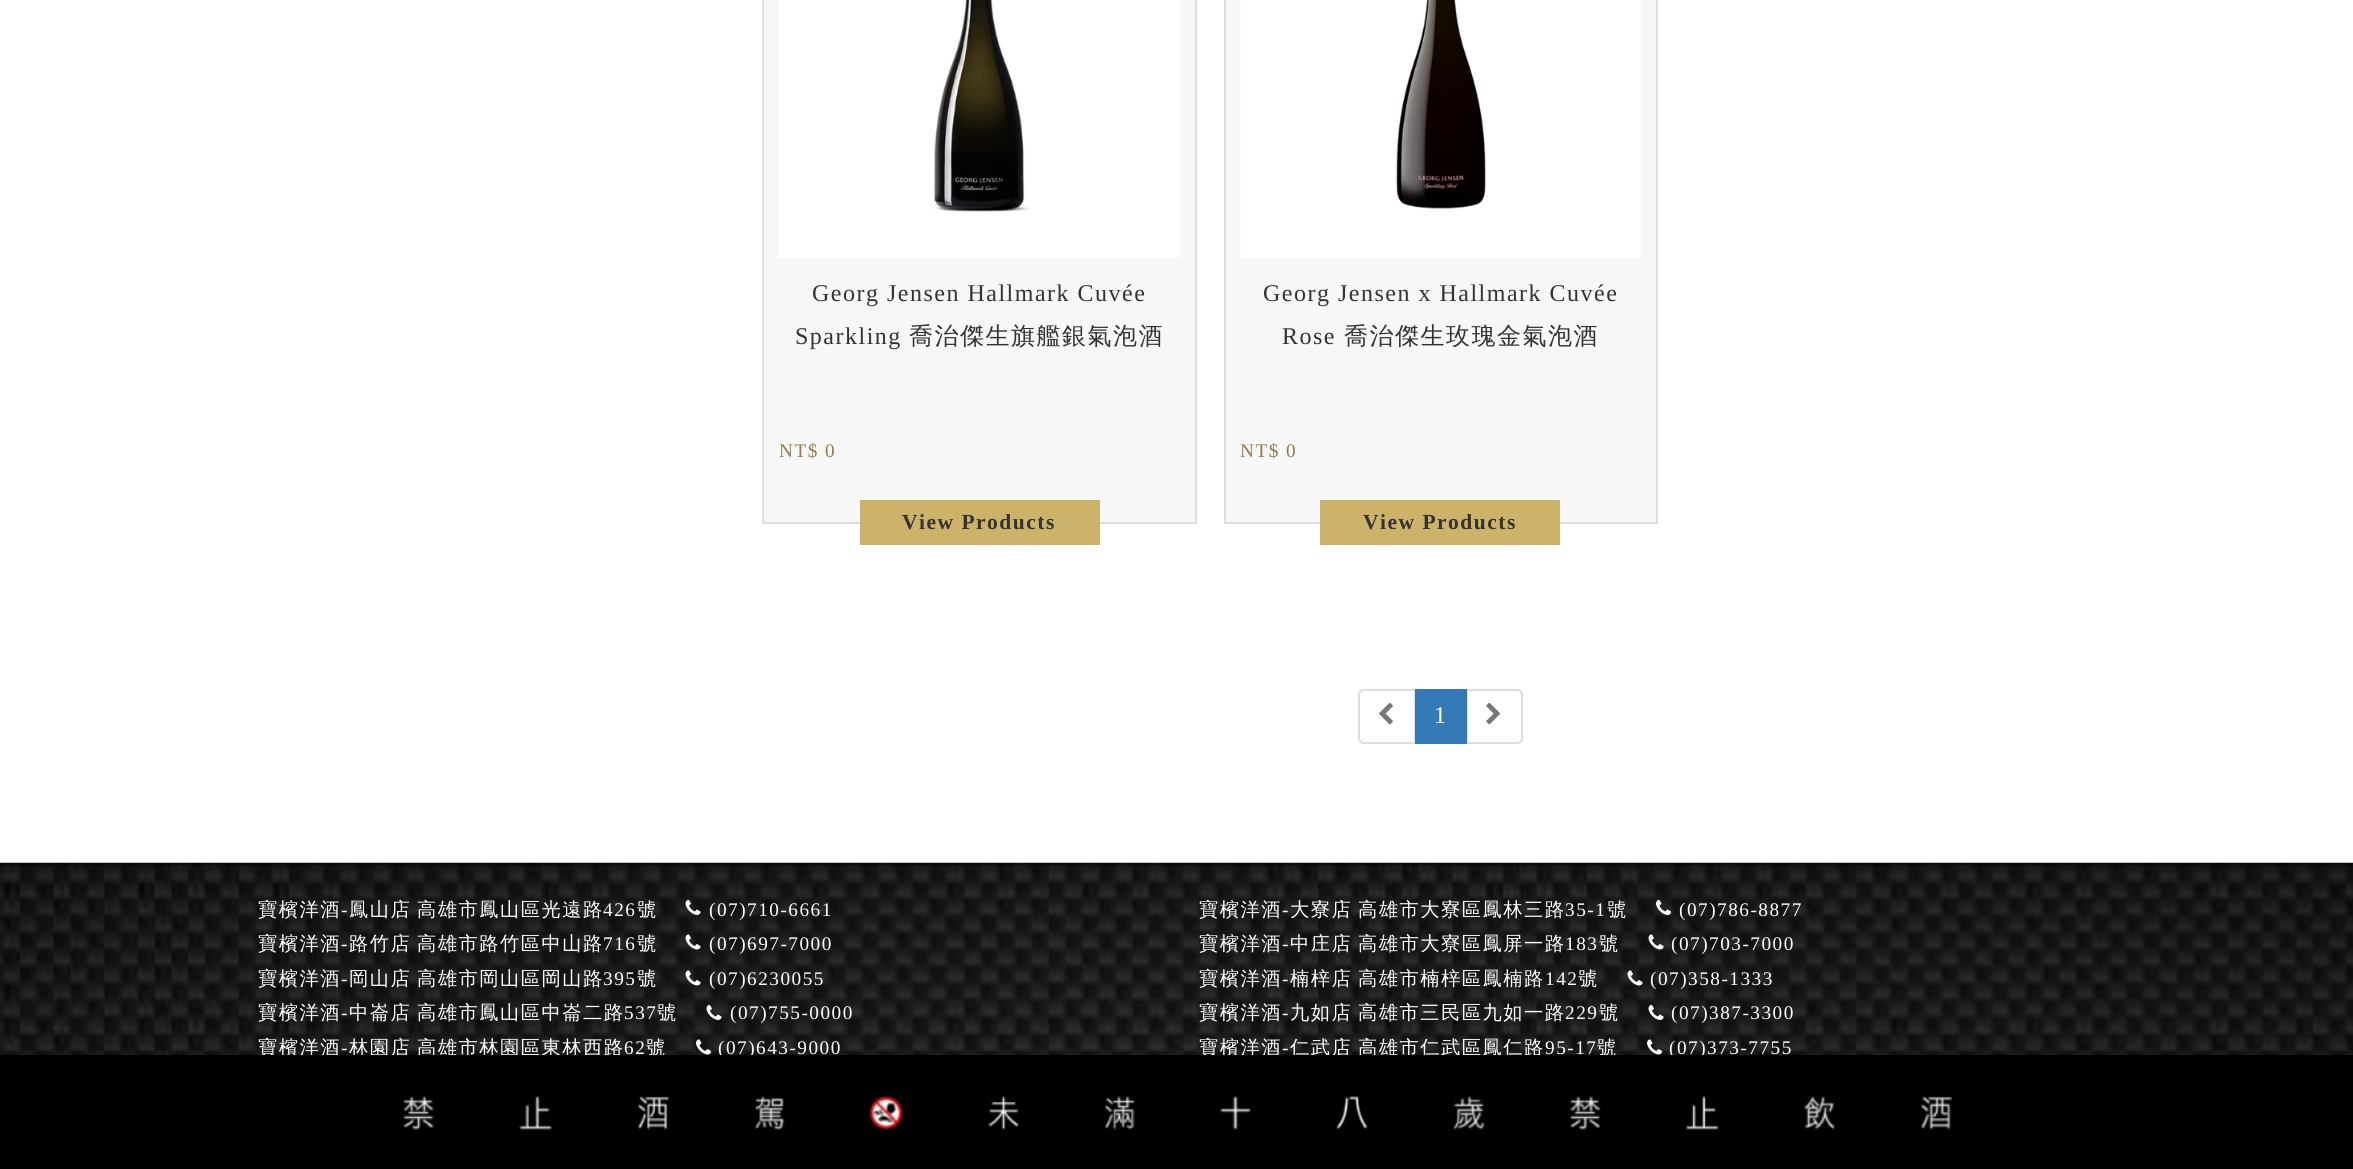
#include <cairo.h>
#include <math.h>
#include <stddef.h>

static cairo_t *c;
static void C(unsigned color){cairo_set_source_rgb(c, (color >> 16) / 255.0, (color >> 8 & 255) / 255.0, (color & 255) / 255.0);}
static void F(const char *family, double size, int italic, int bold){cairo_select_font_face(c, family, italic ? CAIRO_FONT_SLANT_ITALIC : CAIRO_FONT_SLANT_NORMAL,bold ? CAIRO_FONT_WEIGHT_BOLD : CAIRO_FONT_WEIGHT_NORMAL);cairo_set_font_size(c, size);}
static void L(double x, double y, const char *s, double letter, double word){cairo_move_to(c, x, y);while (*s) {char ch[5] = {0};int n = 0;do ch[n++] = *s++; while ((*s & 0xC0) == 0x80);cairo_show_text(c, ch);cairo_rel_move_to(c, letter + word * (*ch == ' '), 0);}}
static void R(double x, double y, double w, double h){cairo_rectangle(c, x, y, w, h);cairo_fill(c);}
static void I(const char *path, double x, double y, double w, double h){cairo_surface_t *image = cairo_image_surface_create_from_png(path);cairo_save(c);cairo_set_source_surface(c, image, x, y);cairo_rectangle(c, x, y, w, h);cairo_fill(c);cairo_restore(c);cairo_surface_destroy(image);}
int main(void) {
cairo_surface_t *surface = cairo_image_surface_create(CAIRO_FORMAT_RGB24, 2353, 1169);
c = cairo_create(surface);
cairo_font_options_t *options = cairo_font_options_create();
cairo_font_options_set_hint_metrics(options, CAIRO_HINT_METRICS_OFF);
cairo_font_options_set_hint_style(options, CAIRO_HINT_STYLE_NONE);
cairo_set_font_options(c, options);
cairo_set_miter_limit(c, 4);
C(0xffffff);
cairo_paint(c);
C(0xf7f7f7);
cairo_rectangle(c,763,-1,433,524);
cairo_fill_preserve(c);
C(0xdedede);
cairo_stroke(c);
I("1.png",778,0,403,258);
F("Liberation Serif",24,0,0);
C(0x333333);
L(812,301,"Georg Jensen Hallmark Cuvée",1.5,0);
L(795,344,"Sparkling",1.5,0);
F("WenQuanYi Zen Hei Medium",24,0,0);
L(909,344,"喬治傑生旗艦銀氣泡酒",1.5,0);
F("Liberation Serif",19.25,0,0);
C(0x8f7d49);
L(779,457,"NT$ 0",1.5,0);
C(0xcdb369);
R(860,500,240,45);
F("Liberation Serif",21.5,0,1);
C(0x333333);
L(902,529,"View Products",1.5,0);
C(0xf7f7f7);
cairo_rectangle(c,1225,-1,432,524);
cairo_fill_preserve(c);
C(0xdedede);
cairo_stroke(c);
I("2.png",1240,0,401,258);
F("Liberation Serif",24,0,0);
C(0x333333);
L(1263,301,"Georg Jensen x Hallmark Cuvée",1.5,0);
L(1282,344,"Rose",1.5,0);
F("WenQuanYi Zen Hei Medium",24,0,0);
L(1344,344,"喬治傑生玫瑰金氣泡酒",1.5,0);
F("Liberation Serif",19.25,0,0);
C(0x8f7d49);
L(1240,457,"NT$ 0",1.5,0);
C(0xcdb369);
R(1320,500,240,45);
F("Liberation Serif",21.5,0,1);
C(0x333333);
L(1363,529,"View Products",1.5,0);
cairo_new_path(c);
cairo_move_to(c,1364,690);
cairo_line_to(c,1415,690);
cairo_line_to(c,1415,743);
cairo_line_to(c,1364,743);
cairo_curve_to(c,1361,743,1359,741,1359,738);
cairo_line_to(c,1359,695);
cairo_curve_to(c,1359,692,1361,690,1364,690);
cairo_close_path(c);
C(0xdddddd);
cairo_stroke(c);
I("3.png",1379,702,14,23);
cairo_new_path(c);
cairo_move_to(c,1467,690);
cairo_line_to(c,1517,690);
cairo_curve_to(c,1520,690,1522,692,1522,695);
cairo_line_to(c,1522,738);
cairo_curve_to(c,1522,741,1520,743,1517,743);
cairo_line_to(c,1467,743);
cairo_close_path(c);
cairo_stroke(c);
C(0x337ab7);
R(1415,689,52,55);
F("Liberation Serif",24,0,0);
C(0xffffff);
L(1434,723,"1",1.5,0);
I("4.png",1486,702,14,23);
C(0x000000);
R(0,863,2353,4);
I("5.png",0,862,2353,193);
F("WenQuanYi Zen Hei Medium",19.25,0,0);
C(0xffffff);
L(258,916,"寶檳洋酒",1.5,0);
F("Liberation Serif",19.25,0,0);
L(341,916,"-",1.5,0);
F("WenQuanYi Zen Hei Medium",19.25,0,0);
L(349,916,"鳳山店",1.5,0);
L(417,916,"高雄市鳳山區光遠路",1.5,0);
F("Liberation Serif",19.25,0,0);
L(603,916,"426",1.5,0);
F("WenQuanYi Zen Hei Medium",19.25,0,0);
L(637,916,"號",1.5,0);
I("6.png",685,899,16,16);
F("Liberation Serif",19.25,0,0);
L(709,916,"(07)710-6661",1.5,0);
F("WenQuanYi Zen Hei Medium",19.25,0,0);
L(1199,916,"寶檳洋酒",1.5,0);
F("Liberation Serif",19.25,0,0);
L(1282,916,"-",1.5,0);
F("WenQuanYi Zen Hei Medium",19.25,0,0);
L(1290,916,"大寮店",1.5,0);
L(1358,916,"高雄市大寮區鳳林三路",1.5,0);
F("Liberation Serif",19.25,0,0);
L(1565,916,"35-1",1.5,0);
F("WenQuanYi Zen Hei Medium",19.25,0,0);
L(1607,916,"號",1.5,0);
I("7.png",1656,899,16,16);
F("Liberation Serif",19.25,0,0);
L(1679,916,"(07)786-8877",1.5,0);
F("WenQuanYi Zen Hei Medium",19.25,0,0);
L(258,950,"寶檳洋酒",1.5,0);
F("Liberation Serif",19.25,0,0);
L(341,950,"-",1.5,0);
F("WenQuanYi Zen Hei Medium",19.25,0,0);
L(349,950,"路竹店",1.5,0);
L(417,950,"高雄市路竹區中山路",1.5,0);
F("Liberation Serif",19.25,0,0);
L(603,950,"716",1.5,0);
F("WenQuanYi Zen Hei Medium",19.25,0,0);
L(637,950,"號",1.5,0);
I("8.png",685,934,16,16);
F("Liberation Serif",19.25,0,0);
L(709,950,"(07)697-7000",1.5,0);
F("WenQuanYi Zen Hei Medium",19.25,0,0);
L(1199,950,"寶檳洋酒",1.5,0);
F("Liberation Serif",19.25,0,0);
L(1282,950,"-",1.5,0);
F("WenQuanYi Zen Hei Medium",19.25,0,0);
L(1290,950,"中庄店",1.5,0);
L(1358,950,"高雄市大寮區鳳屏一路",1.5,0);
F("Liberation Serif",19.25,0,0);
L(1565,950,"183",1.5,0);
F("WenQuanYi Zen Hei Medium",19.25,0,0);
L(1599,950,"號",1.5,0);
I("9.png",1648,934,16,16);
F("Liberation Serif",19.25,0,0);
L(1671,950,"(07)703-7000",1.5,0);
F("WenQuanYi Zen Hei Medium",19.25,0,0);
L(258,985,"寶檳洋酒",1.5,0);
F("Liberation Serif",19.25,0,0);
L(341,985,"-",1.5,0);
F("WenQuanYi Zen Hei Medium",19.25,0,0);
L(349,985,"岡山店",1.5,0);
L(417,985,"高雄市岡山區岡山路",1.5,0);
F("Liberation Serif",19.25,0,0);
L(603,985,"395",1.5,0);
F("WenQuanYi Zen Hei Medium",19.25,0,0);
L(637,985,"號",1.5,0);
I("10.png",685,970,16,16);
F("Liberation Serif",19.25,0,0);
L(709,985,"(07)6230055",1.5,0);
F("WenQuanYi Zen Hei Medium",19.25,0,0);
L(1199,985,"寶檳洋酒",1.5,0);
F("Liberation Serif",19.25,0,0);
L(1282,985,"-",1.5,0);
F("WenQuanYi Zen Hei Medium",19.25,0,0);
L(1290,985,"楠梓店",1.5,0);
L(1358,985,"高雄市楠梓區鳳楠路",1.5,0);
F("Liberation Serif",19.25,0,0);
L(1545,985,"142",1.5,0);
F("WenQuanYi Zen Hei Medium",19.25,0,0);
L(1578,985,"號",1.5,0);
I("11.png",1627,970,16,16);
F("Liberation Serif",19.25,0,0);
L(1650,985,"(07)358-1333",1.5,0);
F("WenQuanYi Zen Hei Medium",19.25,0,0);
L(258,1019,"寶檳洋酒",1.5,0);
F("Liberation Serif",19.25,0,0);
L(341,1019,"-",1.5,0);
F("WenQuanYi Zen Hei Medium",19.25,0,0);
L(349,1019,"中崙店",1.5,0);
L(417,1019,"高雄市鳳山區中崙二路",1.5,0);
F("Liberation Serif",19.25,0,0);
L(624,1019,"537",1.5,0);
F("WenQuanYi Zen Hei Medium",19.25,0,0);
L(657,1019,"號",1.5,0);
I("12.png",706,1004,16,16);
F("Liberation Serif",19.25,0,0);
L(730,1019,"(07)755-0000",1.5,0);
F("WenQuanYi Zen Hei Medium",19.25,0,0);
L(1199,1019,"寶檳洋酒",1.5,0);
F("Liberation Serif",19.25,0,0);
L(1282,1019,"-",1.5,0);
F("WenQuanYi Zen Hei Medium",19.25,0,0);
L(1290,1019,"九如店",1.5,0);
L(1358,1019,"高雄市三民區九如一路",1.5,0);
F("Liberation Serif",19.25,0,0);
L(1565,1019,"229",1.5,0);
F("WenQuanYi Zen Hei Medium",19.25,0,0);
L(1599,1019,"號",1.5,0);
I("13.png",1648,1004,16,16);
F("Liberation Serif",19.25,0,0);
L(1671,1019,"(07)387-3300",1.5,0);
F("WenQuanYi Zen Hei Medium",19.25,0,0);
L(258,1054,"寶檳洋酒",1.5,0);
F("Liberation Serif",19.25,0,0);
L(341,1054,"-",1.5,0);
F("WenQuanYi Zen Hei Medium",19.25,0,0);
L(349,1054,"林園店",1.5,0);
L(417,1054,"高雄市林園區東林西路",1.5,0);
F("Liberation Serif",19.25,0,0);
L(624,1054,"62",1.5,0);
F("WenQuanYi Zen Hei Medium",19.25,0,0);
L(646,1054,"號",1.5,0);
I("14.png",696,1039,16,16);
F("Liberation Serif",19.25,0,0);
L(718,1054,"(07)643-9000",1.5,0);
F("WenQuanYi Zen Hei Medium",19.25,0,0);
L(1199,1054,"寶檳洋酒",1.5,0);
F("Liberation Serif",19.25,0,0);
L(1282,1054,"-",1.5,0);
F("WenQuanYi Zen Hei Medium",19.25,0,0);
L(1290,1054,"仁武店",1.5,0);
L(1358,1054,"高雄市仁武區鳳仁路",1.5,0);
F("Liberation Serif",19.25,0,0);
L(1545,1054,"95-17",1.5,0);
F("WenQuanYi Zen Hei Medium",19.25,0,0);
L(1597,1054,"號",1.5,0);
I("15.png",1647,1039,16,16);
F("Liberation Serif",19.25,0,0);
L(1669,1054,"(07)373-7755",1.5,0);
C(0x000000);
R(0,1055,2353,114);
I("16.png",403,1095,1550,36);
cairo_surface_write_to_png(surface, "o.png");
cairo_font_options_destroy(options);
cairo_destroy(c);
cairo_surface_destroy(surface);
return 0;
}
